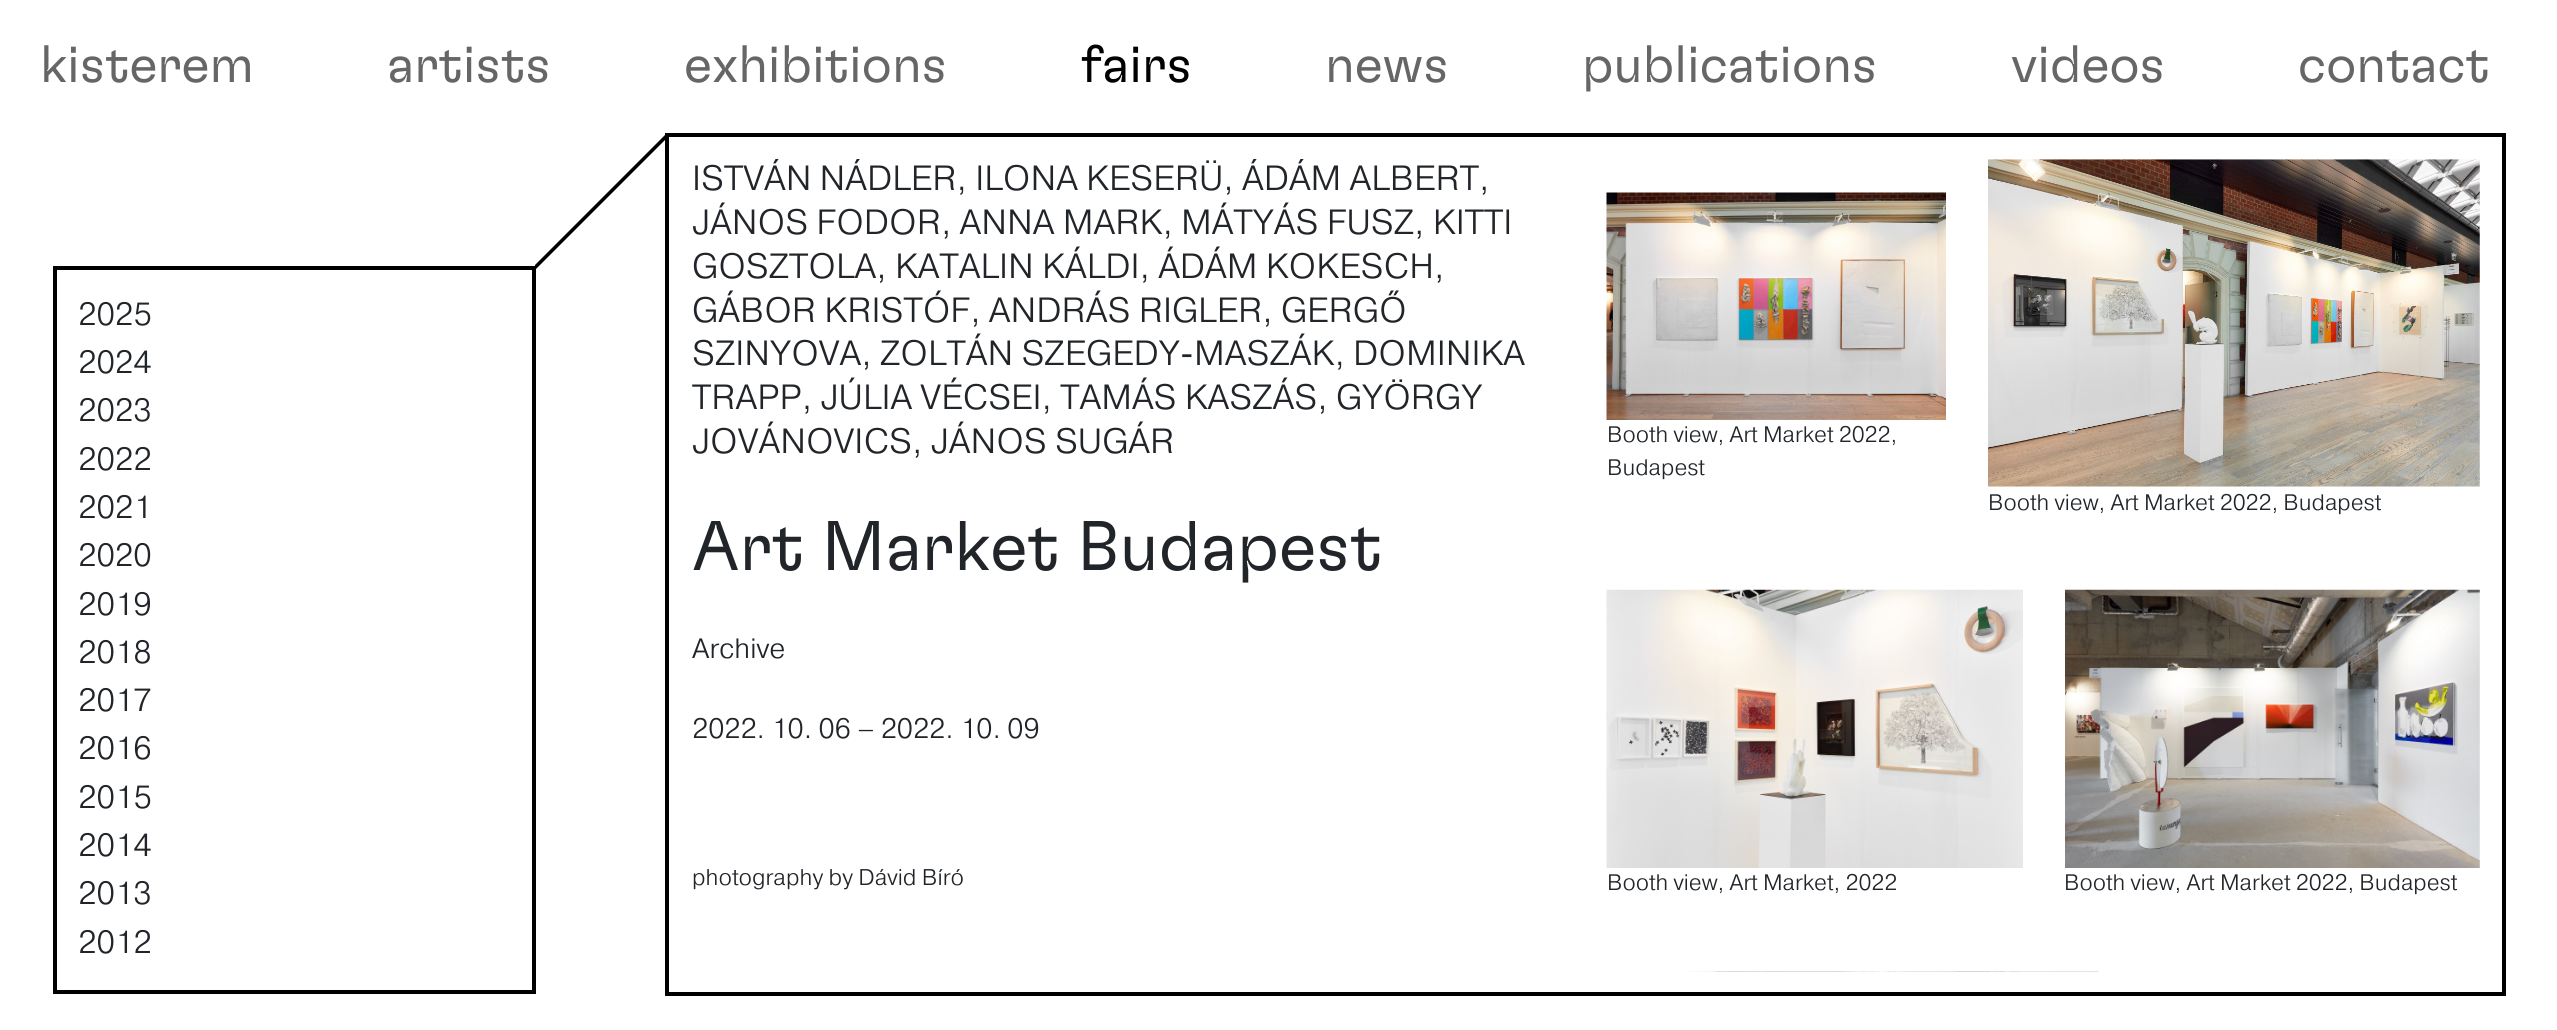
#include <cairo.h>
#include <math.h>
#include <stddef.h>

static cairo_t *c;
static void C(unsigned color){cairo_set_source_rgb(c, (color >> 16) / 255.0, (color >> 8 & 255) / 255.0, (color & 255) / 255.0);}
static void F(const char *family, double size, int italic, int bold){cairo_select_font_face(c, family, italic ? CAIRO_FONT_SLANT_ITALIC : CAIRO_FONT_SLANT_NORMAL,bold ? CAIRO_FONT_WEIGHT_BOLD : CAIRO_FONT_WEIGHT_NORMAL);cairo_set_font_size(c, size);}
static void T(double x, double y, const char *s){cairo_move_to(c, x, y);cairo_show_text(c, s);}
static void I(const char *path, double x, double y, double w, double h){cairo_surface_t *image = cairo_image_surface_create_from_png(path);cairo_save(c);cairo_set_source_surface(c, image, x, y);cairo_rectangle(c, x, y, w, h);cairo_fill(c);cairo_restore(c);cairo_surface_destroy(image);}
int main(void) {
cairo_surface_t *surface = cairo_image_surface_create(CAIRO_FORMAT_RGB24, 2557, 1030);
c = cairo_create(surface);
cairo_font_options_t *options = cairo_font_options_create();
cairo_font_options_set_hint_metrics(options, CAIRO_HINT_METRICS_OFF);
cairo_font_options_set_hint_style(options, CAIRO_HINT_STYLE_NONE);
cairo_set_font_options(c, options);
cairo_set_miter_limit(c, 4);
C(0xffffff);
cairo_paint(c);
F("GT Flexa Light",52.5,0,0);
C(0x666666);
T(40,82,"kisterem");
T(387,82,"artists");
T(684,82,"exhibitions");
C(0x000000);
T(1081,82,"fairs");
C(0x666666);
T(1325,82,"news");
T(1582,82,"publications");
T(2011,82,"videos");
T(2298,82,"contact");
cairo_rectangle(c,55,268,479,724);
C(0x000000);
cairo_set_line_width(c,4);
cairo_stroke(c);
F("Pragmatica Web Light",32,0,0);
C(0x212529);
T(78,325,"2025");
T(78,373,"2024");
T(78,421,"2023");
T(78,470,"2022");
T(78,518,"2021");
T(78,566,"2020");
T(78,615,"2019");
T(78,663,"2018");
T(78,711,"2017");
T(78,759,"2016");
T(78,808,"2015");
T(78,856,"2014");
T(78,904,"2013");
T(78,953,"2012");
C(0x000000);
cairo_new_path(c);
cairo_move_to(c,535,265);
cairo_line_to(c,666,134);
cairo_line_to(c,666,139);
cairo_line_to(c,535,270);
cairo_close_path(c);
cairo_fill(c);
cairo_rectangle(c,667,135,1837,859);
cairo_stroke(c);
cairo_save(c);
cairo_rectangle(c,670,159,916,812);
cairo_clip(c);
F("Pragmatica Web Light",35,0,0);
C(0x212529);
T(692,190,"ISTVÁN NÁDLER, ILONA KESERÜ, ÁDÁM ALBERT,");
cairo_restore(c);
F("Pragmatica Web Light",35,0,0);
C(0x212529);
T(692,234,"JÁNOS FODOR, ANNA MARK, MÁTYÁS FUSZ, KITTI");
T(692,278,"GOSZTOLA, KATALIN KÁLDI, ÁDÁM KOKESCH,");
T(692,322,"GÁBOR KRISTÓF, ANDRÁS RIGLER, GERGŐ");
T(692,365,"SZINYOVA, ZOLTÁN SZEGEDY-MASZÁK, DOMINIKA");
T(692,409,"TRAPP, JÚLIA VÉCSEI, TAMÁS KASZÁS, GYÖRGY");
T(692,453,"JOVÁNOVICS, JÁNOS SUGÁR");
F("GT Flexa Light",70,0,0);
T(692,570,"Art Market Budapest");
F("Pragmatica Web Light",28,0,0);
T(692,658,"Archive");
T(692,738,"2022. 10. 06 – 2022. 10. 09");
F("Pragmatica Web Light",22.75,0,0);
T(692,885,"photography by Dávid Bíró");
I("1.png",1606,192,340,228);
F("Pragmatica Web Light",22.4,0,0);
T(1607,442,"Booth view, Art Market 2022,");
T(1607,475,"Budapest");
I("2.png",1988,159,492,328);
T(1988,510,"Booth view, Art Market 2022, Budapest");
I("3.png",1606,589,417,279);
T(1607,890,"Booth view, Art Market, 2022");
I("4.png",2065,589,415,279);
T(2064,890,"Booth view, Art Market 2022, Budapest");
I("5.png",1686,971,413,1);
cairo_surface_write_to_png(surface, "o.png");
cairo_font_options_destroy(options);
cairo_destroy(c);
cairo_surface_destroy(surface);
return 0;
}
